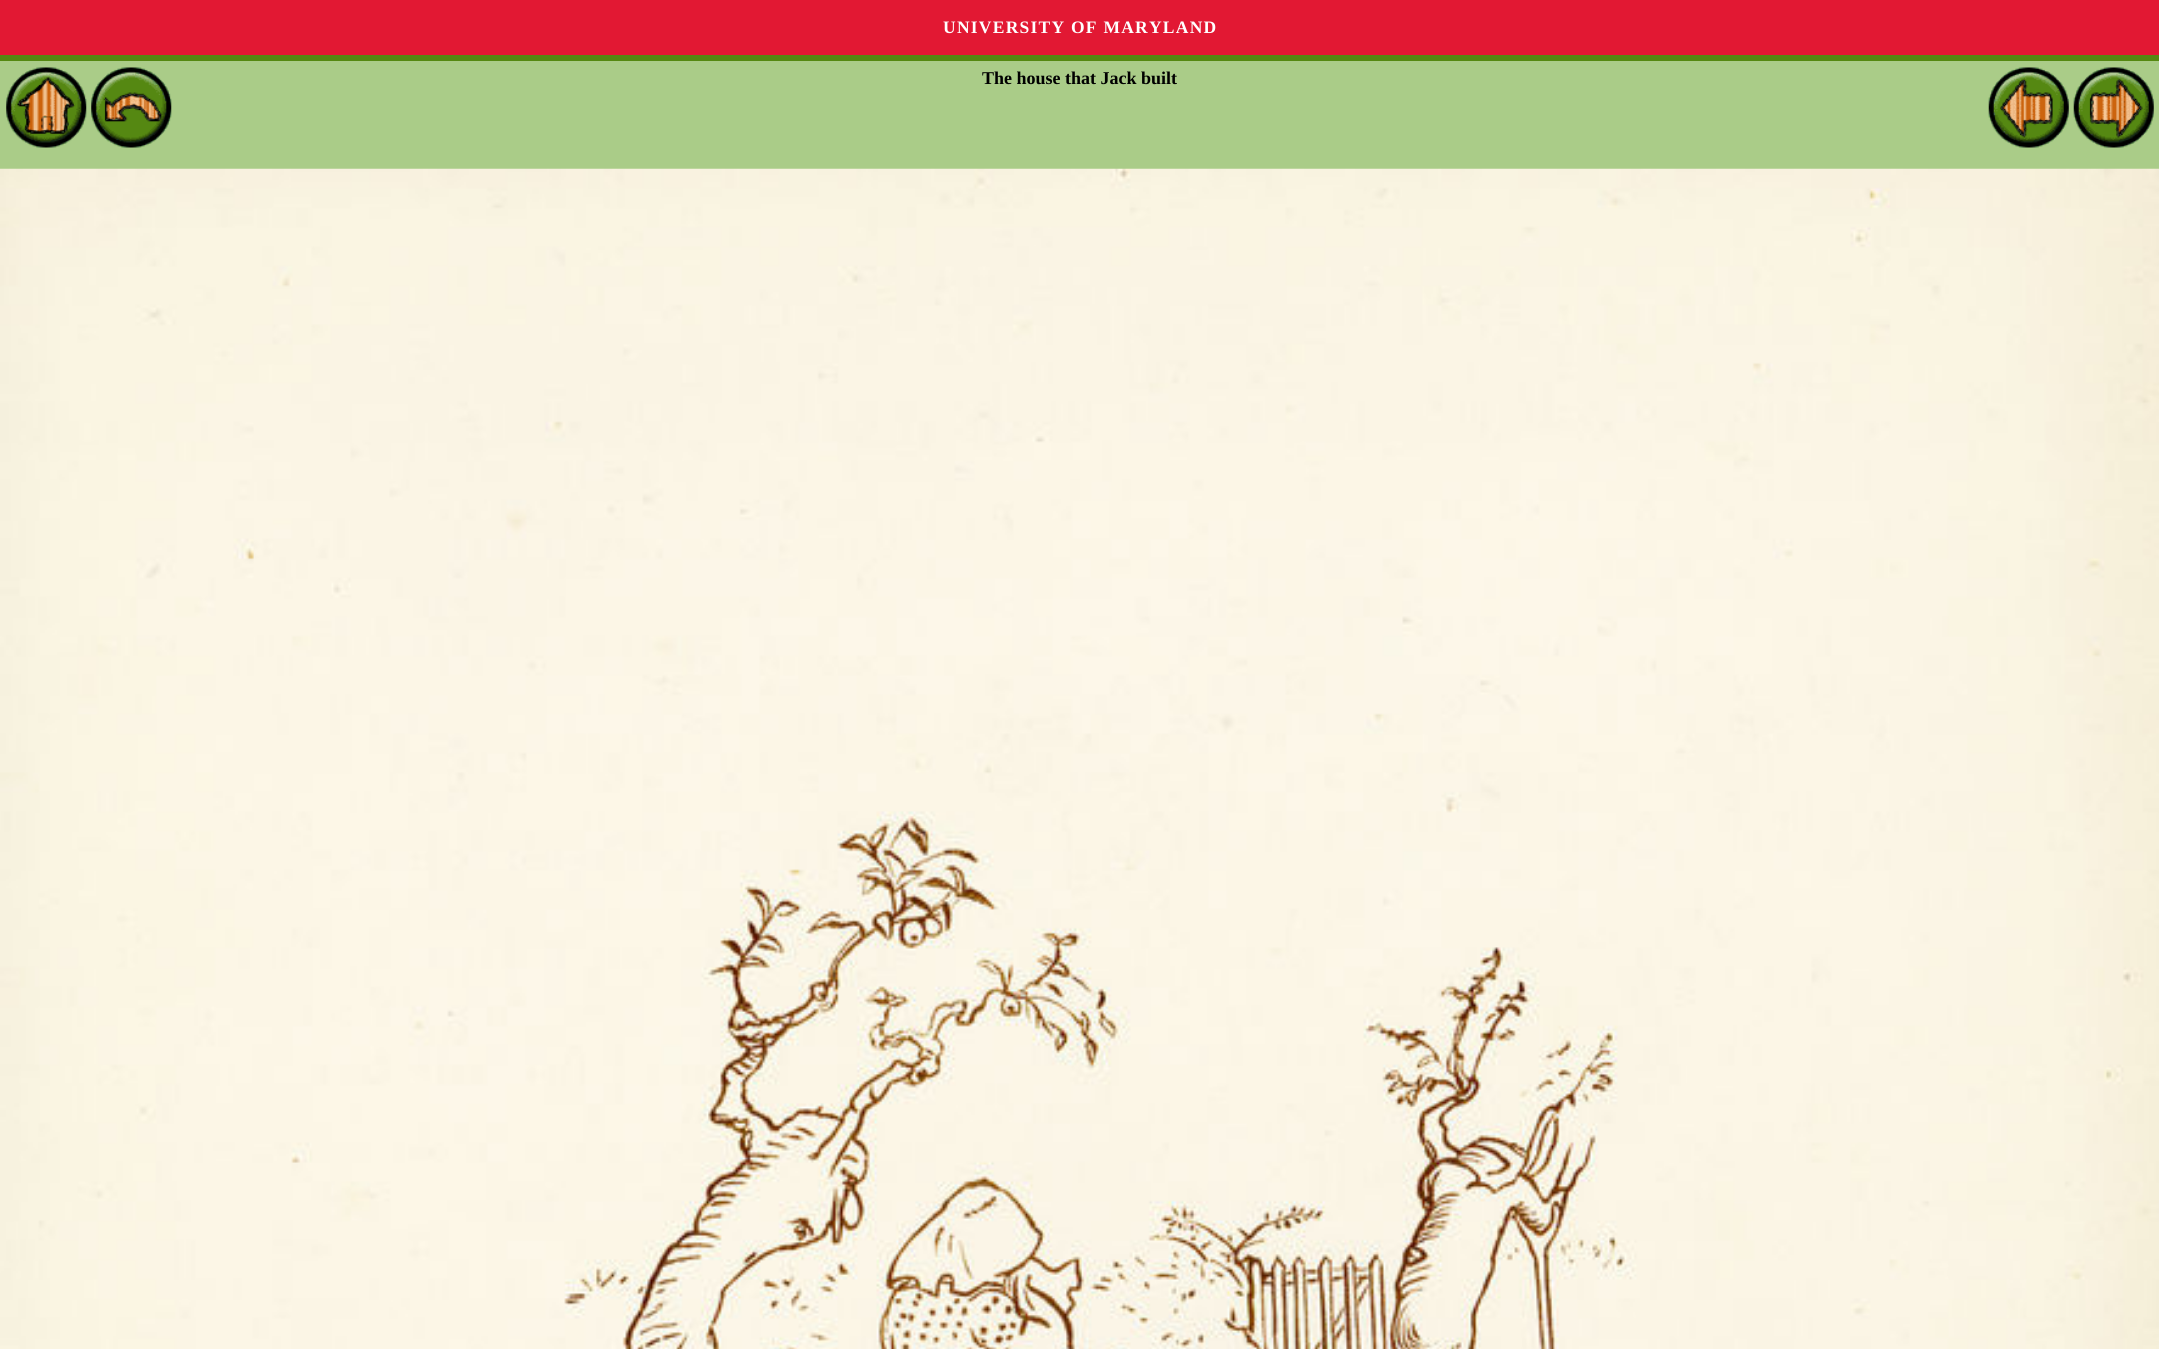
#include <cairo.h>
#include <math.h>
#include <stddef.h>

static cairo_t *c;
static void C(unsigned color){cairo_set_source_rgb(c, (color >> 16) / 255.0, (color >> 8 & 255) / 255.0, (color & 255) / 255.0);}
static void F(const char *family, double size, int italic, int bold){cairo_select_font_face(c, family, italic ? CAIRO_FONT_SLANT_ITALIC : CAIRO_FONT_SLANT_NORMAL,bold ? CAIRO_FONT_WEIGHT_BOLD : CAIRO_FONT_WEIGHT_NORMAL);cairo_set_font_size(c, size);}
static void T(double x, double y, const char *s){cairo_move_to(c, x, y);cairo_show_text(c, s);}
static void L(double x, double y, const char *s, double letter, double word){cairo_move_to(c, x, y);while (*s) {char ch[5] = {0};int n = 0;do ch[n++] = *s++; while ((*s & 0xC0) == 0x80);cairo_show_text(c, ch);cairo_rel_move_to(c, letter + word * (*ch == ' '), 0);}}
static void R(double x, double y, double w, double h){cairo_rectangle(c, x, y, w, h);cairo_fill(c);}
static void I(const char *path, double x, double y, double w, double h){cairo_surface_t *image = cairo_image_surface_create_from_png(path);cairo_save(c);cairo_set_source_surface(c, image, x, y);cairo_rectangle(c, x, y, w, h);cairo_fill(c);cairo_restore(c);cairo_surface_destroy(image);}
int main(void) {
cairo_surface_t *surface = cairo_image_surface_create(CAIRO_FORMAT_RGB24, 2159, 1349);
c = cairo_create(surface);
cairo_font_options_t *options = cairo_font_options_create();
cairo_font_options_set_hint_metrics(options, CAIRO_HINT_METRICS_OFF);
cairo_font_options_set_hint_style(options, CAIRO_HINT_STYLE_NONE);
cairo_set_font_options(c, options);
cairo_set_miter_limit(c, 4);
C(0xaacc88);
cairo_paint(c);
C(0xe21833);
R(0,0,2159,55);
F("Liberation Serif",17.5,0,1);
C(0xffffff);
L(943,33,"UNIVERSITY OF MARYLAND",1.25,0);
C(0x558811);
R(0,55,2159,6);
I("1.png",6,67,81,81);
I("2.png",91,67,81,81);
F("Liberation Serif",18,0,1);
C(0x000000);
T(982,84,"The house that Jack built");
I("3.png",1988,67,81,81);
I("4.png",2073,67,81,81);
I("5.png",0,168,2159,1181);
cairo_surface_write_to_png(surface, "o.png");
cairo_font_options_destroy(options);
cairo_destroy(c);
cairo_surface_destroy(surface);
return 0;
}
